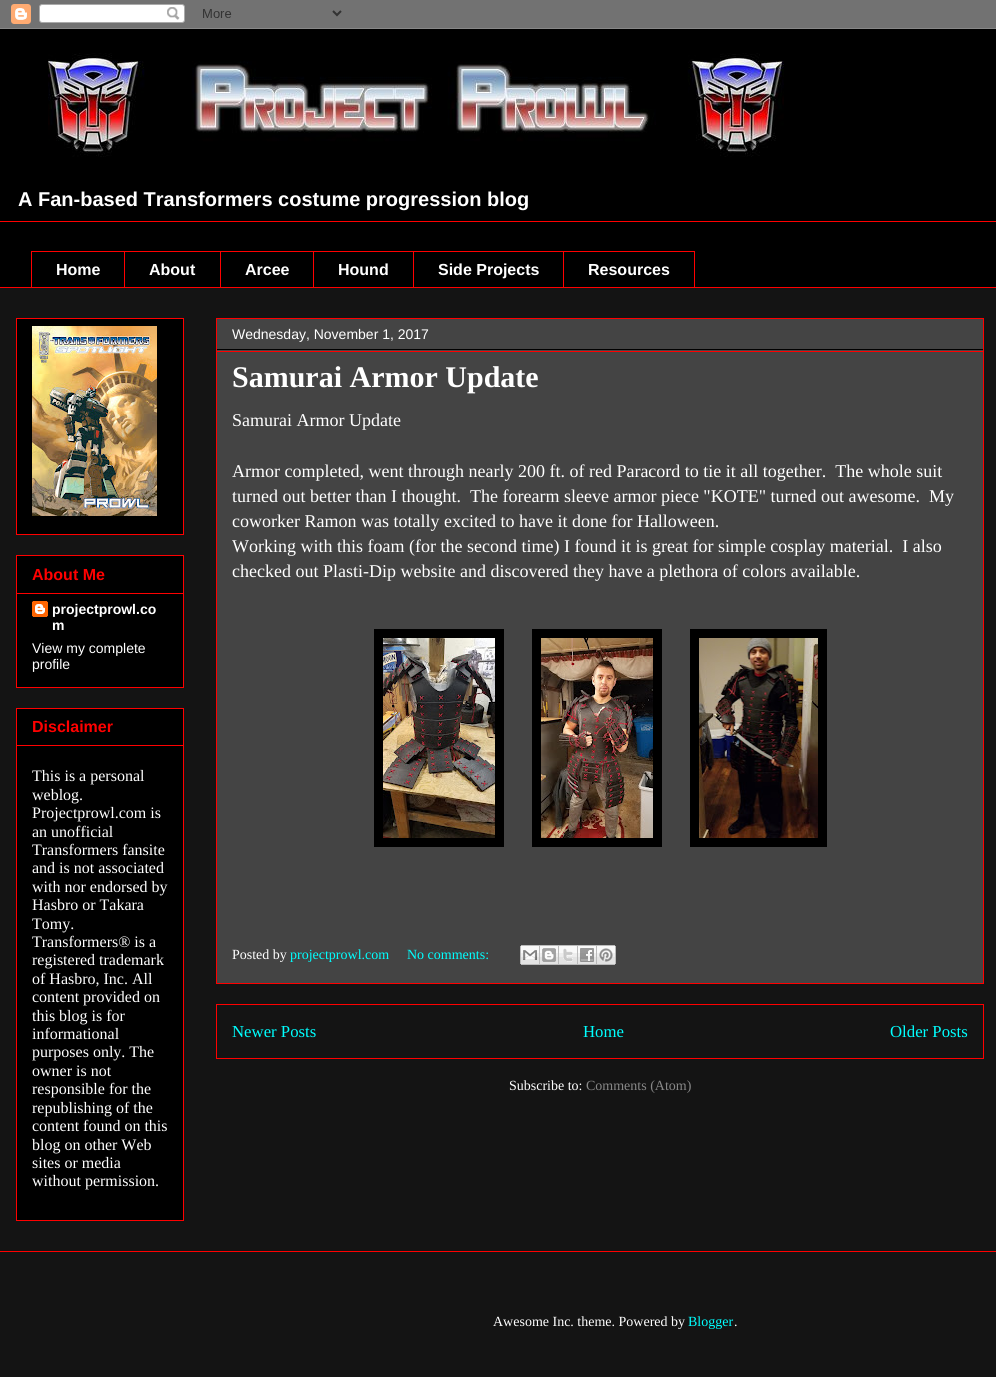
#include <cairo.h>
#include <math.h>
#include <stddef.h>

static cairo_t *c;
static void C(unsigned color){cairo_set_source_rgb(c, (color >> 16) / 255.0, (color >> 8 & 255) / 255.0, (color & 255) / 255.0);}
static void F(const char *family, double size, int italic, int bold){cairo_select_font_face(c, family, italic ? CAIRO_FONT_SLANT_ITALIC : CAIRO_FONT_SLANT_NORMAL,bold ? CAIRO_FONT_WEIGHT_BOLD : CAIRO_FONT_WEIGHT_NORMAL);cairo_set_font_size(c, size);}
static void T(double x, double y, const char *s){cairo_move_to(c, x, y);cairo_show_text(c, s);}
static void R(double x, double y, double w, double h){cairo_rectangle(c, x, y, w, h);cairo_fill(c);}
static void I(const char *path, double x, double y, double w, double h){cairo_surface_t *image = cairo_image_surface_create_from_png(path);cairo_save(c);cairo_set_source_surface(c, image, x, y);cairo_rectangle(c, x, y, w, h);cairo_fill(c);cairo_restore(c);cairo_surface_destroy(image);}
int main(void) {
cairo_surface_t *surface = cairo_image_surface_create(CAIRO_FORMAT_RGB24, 996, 1377);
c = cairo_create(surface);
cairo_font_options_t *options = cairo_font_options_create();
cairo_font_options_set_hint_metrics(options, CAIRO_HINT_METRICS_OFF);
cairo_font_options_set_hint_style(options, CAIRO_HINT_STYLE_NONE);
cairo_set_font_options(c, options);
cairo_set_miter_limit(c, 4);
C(0x141414);
cairo_paint(c);
I("1.png",0,0,996,29);
C(0x000000);
R(0,29,996,192);
I("2.png",48,53,736,104);
F("Liberation Sans",20,0,1);
C(0xffffff);
T(18,206,"A Fan-based Transformers costume progression blog");
C(0x000000);
R(0,222,996,65);
C(0xff0000);
R(0,221,996,1);
R(31,251,532,1);
R(31,251,1,37);
F("Liberation Sans",16,0,1);
C(0xffffff);
T(56,275,"Home");
C(0xff0000);
R(124,251,1,37);
C(0xffffff);
T(149,275,"About");
C(0xff0000);
R(220,251,1,37);
C(0xffffff);
T(245,275,"Arcee");
C(0xff0000);
R(313,251,1,37);
C(0xffffff);
T(338,275,"Hound");
C(0xff0000);
R(413,251,1,37);
C(0xffffff);
T(438,275,"Side Projects");
cairo_rectangle(c,563.5,251.5,131,36);
C(0xff0000);
cairo_set_line_width(c,1);
cairo_stroke(c);
C(0xffffff);
T(588,275,"Resources");
C(0xff0000);
R(0,287,996,1);
C(0x000000);
cairo_rectangle(c,16.5,318.5,167,216);
cairo_fill_preserve(c);
C(0xff0000);
cairo_stroke(c);
I("3.png",32,326,125,190);
C(0x000000);
cairo_rectangle(c,16.5,555.5,167,132);
cairo_fill_preserve(c);
C(0xff0000);
cairo_stroke(c);
T(32,580,"About Me");
R(17,593,166,1);
I("4.png",32,601,16,16);
F("Liberation Sans",14,0,1);
C(0xffffff);
T(52,614,"projectprowl.co");
T(52,630,"m");
F("Liberation Sans",14,0,0);
T(32,653,"View my complete");
T(32,669,"profile");
C(0x000000);
cairo_rectangle(c,16.5,708.5,167,512);
cairo_fill_preserve(c);
C(0xff0000);
cairo_stroke(c);
F("Liberation Sans",16,0,1);
T(32,732,"Disclaimer");
R(17,745,166,1);
F("Liberation Serif",16,0,0);
C(0xffffff);
T(32,781,"This is a personal");
T(32,800,"weblog.");
T(32,818,"Projectprowl.com is");
T(32,837,"an unofficial");
T(32,855,"Transformers fansite");
T(32,873,"and is not associated");
T(32,892,"with nor endorsed by");
T(32,910,"Hasbro or Takara");
T(32,929,"Tomy.");
T(32,947,"Transformers® is a");
T(32,965,"registered trademark");
T(32,984,"of Hasbro, Inc. All");
T(32,1002,"content provided on");
T(32,1021,"this blog is for");
T(32,1039,"informational");
T(32,1057,"purposes only. The");
T(32,1076,"owner is not");
T(32,1094,"responsible for the");
T(32,1113,"republishing of the");
T(32,1131,"content found on this");
T(32,1150,"blog on other Web");
T(32,1168,"sites or media");
T(32,1186,"without permission.");
C(0x444444);
cairo_rectangle(c,216.5,318.5,767,665);
cairo_fill_preserve(c);
C(0xff0000);
cairo_stroke(c);
C(0x000000);
R(217,349,766,1);
F("Liberation Sans",14,0,0);
C(0xffffff);
T(232,339,"Wednesday, November 1, 2017");
C(0xff0000);
R(217,351,766,1);
F("Liberation Serif",30,0,1);
C(0xffffff);
T(232,387,"Samurai Armor Update");
F("Liberation Serif",18,0,0);
T(232,426,"Samurai Armor Update");
T(232,477,"Armor completed, went through nearly 200 ft. of red Paracord to tie it all together.  The whole suit");
T(232,502,"turned out better than I thought.");
T(470,502,"The forearm sleeve armor piece \"KOTE\" turned out awesome.");
T(929,502,"My");
T(232,527,"coworker Ramon was totally excited to have it done for Halloween.");
T(232,552,"Working with this foam (for the second time) I found it is great for simple cosplay material.  I also");
T(232,577,"checked out Plasti-Dip website and discovered they have a plethora of colors available.");
C(0x000000);
R(374,629,130,218);
R(532,629,130,218);
R(690,629,137,218);
I("5.png",383,638,112,200);
I("6.png",541,638,112,200);
I("7.png",699,638,119,200);
F("Liberation Serif",14,0,0);
C(0xffffff);
T(232,959,"Posted by");
C(0x00ffff);
T(290,959,"projectprowl.com");
T(407,959,"No comments:");
I("8.png",520,945,20,20);
I("9.png",540,945,19,20);
I("10.png",559,945,19,20);
I("11.png",578,945,19,20);
I("12.png",597,945,19,20);
cairo_rectangle(c,216.5,1004.5,767,54);
C(0xff0000);
cairo_stroke(c);
F("Liberation Serif",16.75,0,0);
C(0x00ffff);
T(232,1037,"Newer Posts");
T(583,1037,"Home");
T(890,1037,"Older Posts");
F("Liberation Serif",14,0,0);
C(0xffffff);
T(509,1090,"Subscribe to:");
C(0x888888);
T(586,1090,"Comments (Atom)");
C(0xff0000);
R(0,1251,996,1);
C(0xffffff);
T(493,1326,"Awesome Inc. theme. Powered by");
C(0x00ffff);
T(688,1326,"Blogger");
C(0xffffff);
T(734,1326,".");
cairo_surface_write_to_png(surface, "o.png");
cairo_font_options_destroy(options);
cairo_destroy(c);
cairo_surface_destroy(surface);
return 0;
}
